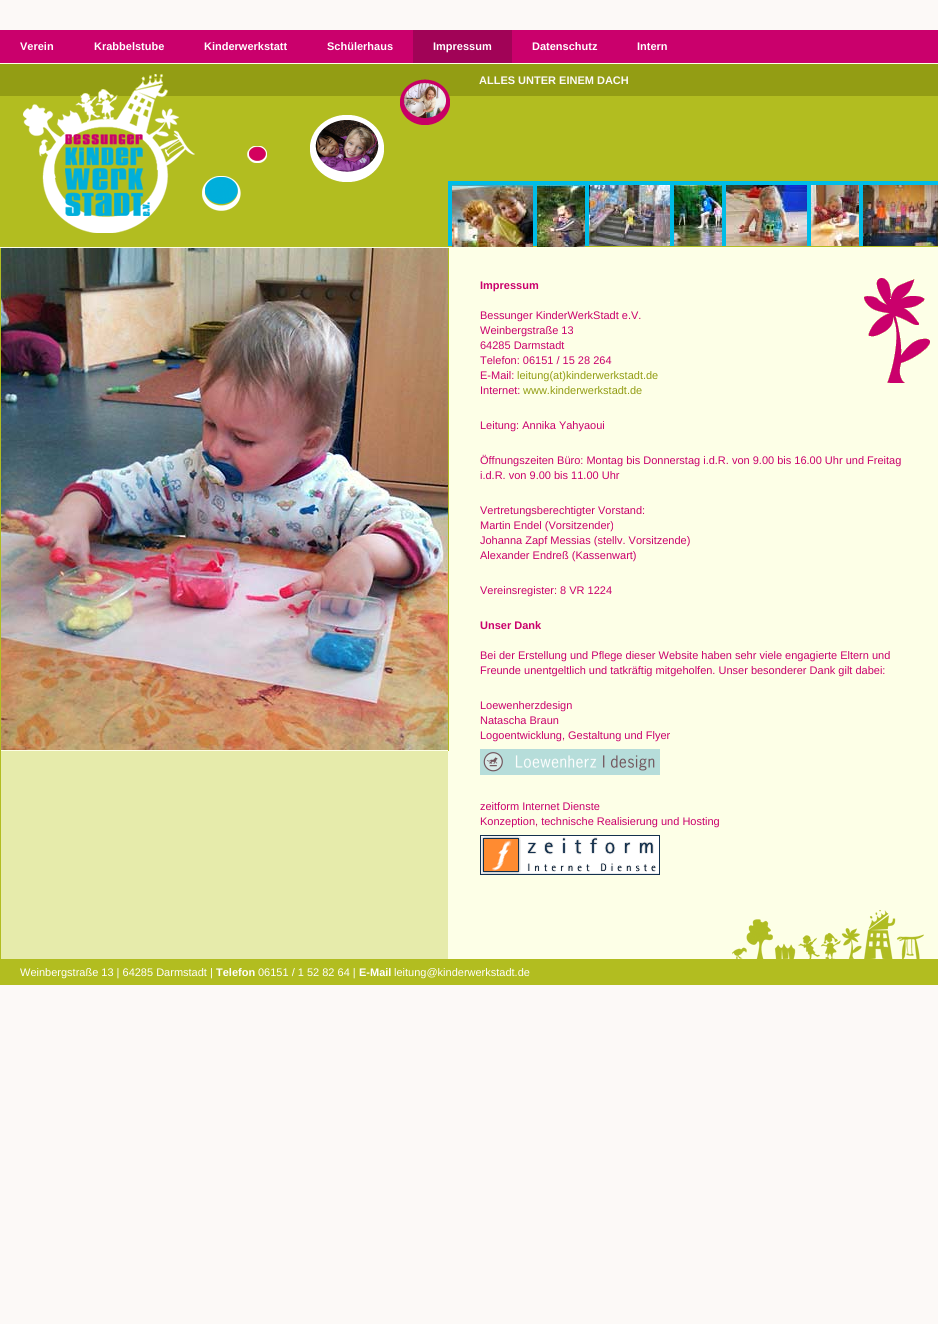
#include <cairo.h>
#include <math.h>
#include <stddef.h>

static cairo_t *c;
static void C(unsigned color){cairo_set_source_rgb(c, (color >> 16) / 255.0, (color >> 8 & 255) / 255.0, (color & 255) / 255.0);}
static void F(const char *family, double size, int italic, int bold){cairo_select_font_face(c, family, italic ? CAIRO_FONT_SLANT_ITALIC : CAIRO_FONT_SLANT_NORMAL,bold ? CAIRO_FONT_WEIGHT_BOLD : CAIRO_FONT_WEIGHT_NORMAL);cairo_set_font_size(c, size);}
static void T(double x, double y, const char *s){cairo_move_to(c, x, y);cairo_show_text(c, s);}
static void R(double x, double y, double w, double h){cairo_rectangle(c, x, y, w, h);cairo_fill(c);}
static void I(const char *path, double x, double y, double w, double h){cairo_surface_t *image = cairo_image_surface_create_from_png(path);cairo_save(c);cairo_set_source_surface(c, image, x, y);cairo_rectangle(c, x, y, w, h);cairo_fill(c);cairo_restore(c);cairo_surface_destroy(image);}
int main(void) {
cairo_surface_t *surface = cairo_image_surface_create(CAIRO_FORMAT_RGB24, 938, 1324);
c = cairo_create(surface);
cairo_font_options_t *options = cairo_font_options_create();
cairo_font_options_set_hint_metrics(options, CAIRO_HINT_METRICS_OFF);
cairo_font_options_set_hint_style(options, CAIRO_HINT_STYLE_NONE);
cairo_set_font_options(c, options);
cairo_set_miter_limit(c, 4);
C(0xfcf9f7);
cairo_paint(c);
I("1.png",1,248,937,711);
C(0xca006c);
R(0,30,938,33);
F("Liberation Sans",11,0,1);
C(0xffffff);
T(20,50,"Verein");
T(94,50,"Krabbelstube");
T(204,50,"Kinderwerkstatt");
T(327,50,"Schülerhaus");
C(0xa10357);
R(413,30,99,33);
C(0xffffff);
T(433,50,"Impressum");
T(532,50,"Datenschutz");
T(637,50,"Intern");
C(0xb2bd20);
R(0,96,938,151);
C(0xfdffe7);
R(0,63,938,1);
R(0,247,938,1);
C(0x939d14);
R(0,64,938,32);
I("2.png",23,74,172,159);
I("3.png",400,79,50,46);
C(0xfcf9f7);
T(479,84,"ALLES UNTER EINEM DACH");
I("4.png",202,146,65,65);
I("5.png",310,115,74,67);
C(0x00bce7);
R(448,181,490,65);
I("6.png",452,185,81,62);
I("7.png",537,185,48,62);
I("8.png",589,185,81,61);
I("9.png",674,185,48,61);
I("10.png",726,185,81,61);
I("11.png",811,185,48,61);
I("12.png",863,185,75,61);
I("13.png",732,910,192,49);
C(0xb2bd20);
R(0,248,1,711);
R(448,248,1,503);
I("14.png",1,248,447,502);
C(0xfdffe7);
R(1,750,447,1);
I("15.png",864,278,66,105);
C(0xca006c);
T(480,289,"Impressum");
F("Liberation Sans",11,0,0);
T(480,319,"Bessunger KinderWerkStadt e.V.");
T(480,334,"Weinbergstraße 13");
T(480,349,"64285 Darmstadt");
T(480,364,"Telefon: 06151 / 15 28 264");
T(480,379,"E-Mail:");
C(0x939d14);
T(517,379,"leitung(at)kinderwerkstadt.de");
C(0xca006c);
T(480,394,"Internet:");
C(0x939d14);
T(523,394,"www.kinderwerkstadt.de");
C(0xca006c);
T(480,429,"Leitung: Annika Yahyaoui");
T(480,464,"Öffnungszeiten Büro: Montag bis Donnerstag i.d.R. von 9.00 bis 16.00 Uhr und Freitag");
T(480,479,"i.d.R. von 9.00 bis 11.00 Uhr");
T(480,514,"Vertretungsberechtigter Vorstand:");
T(480,529,"Martin Endel (Vorsitzender)");
T(480,544,"Johanna Zapf Messias (stellv. Vorsitzende)");
T(480,559,"Alexander Endreß (Kassenwart)");
T(480,594,"Vereinsregister: 8 VR 1224");
F("Liberation Sans",11,0,1);
T(480,629,"Unser Dank");
F("Liberation Sans",11,0,0);
T(480,659,"Bei der Erstellung und Pflege dieser Website haben sehr viele engagierte Eltern und");
T(480,674,"Freunde unentgeltlich und tatkräftig mitgeholfen. Unser besonderer Dank gilt dabei:");
T(480,709,"Loewenherzdesign");
T(480,724,"Natascha Braun");
T(480,739,"Logoentwicklung, Gestaltung und Flyer");
I("16.png",480,749,180,26);
T(480,810,"zeitform Internet Dienste");
T(480,825,"Konzeption, technische Realisierung und Hosting");
I("17.png",480,835,180,40);
C(0xb2bd20);
R(0,959,938,26);
C(0xffffff);
T(20,976,"Weinbergstraße 13 | 64285 Darmstadt |");
F("Liberation Sans",11,0,1);
T(216,976,"Telefon");
F("Liberation Sans",11,0,0);
T(258,976,"06151 / 1 52 82 64 |");
F("Liberation Sans",11,0,1);
T(359,976,"E-Mail");
F("Liberation Sans",11,0,0);
T(394,976,"leitung@kinderwerkstadt.de");
cairo_surface_write_to_png(surface, "o.png");
cairo_font_options_destroy(options);
cairo_destroy(c);
cairo_surface_destroy(surface);
return 0;
}
